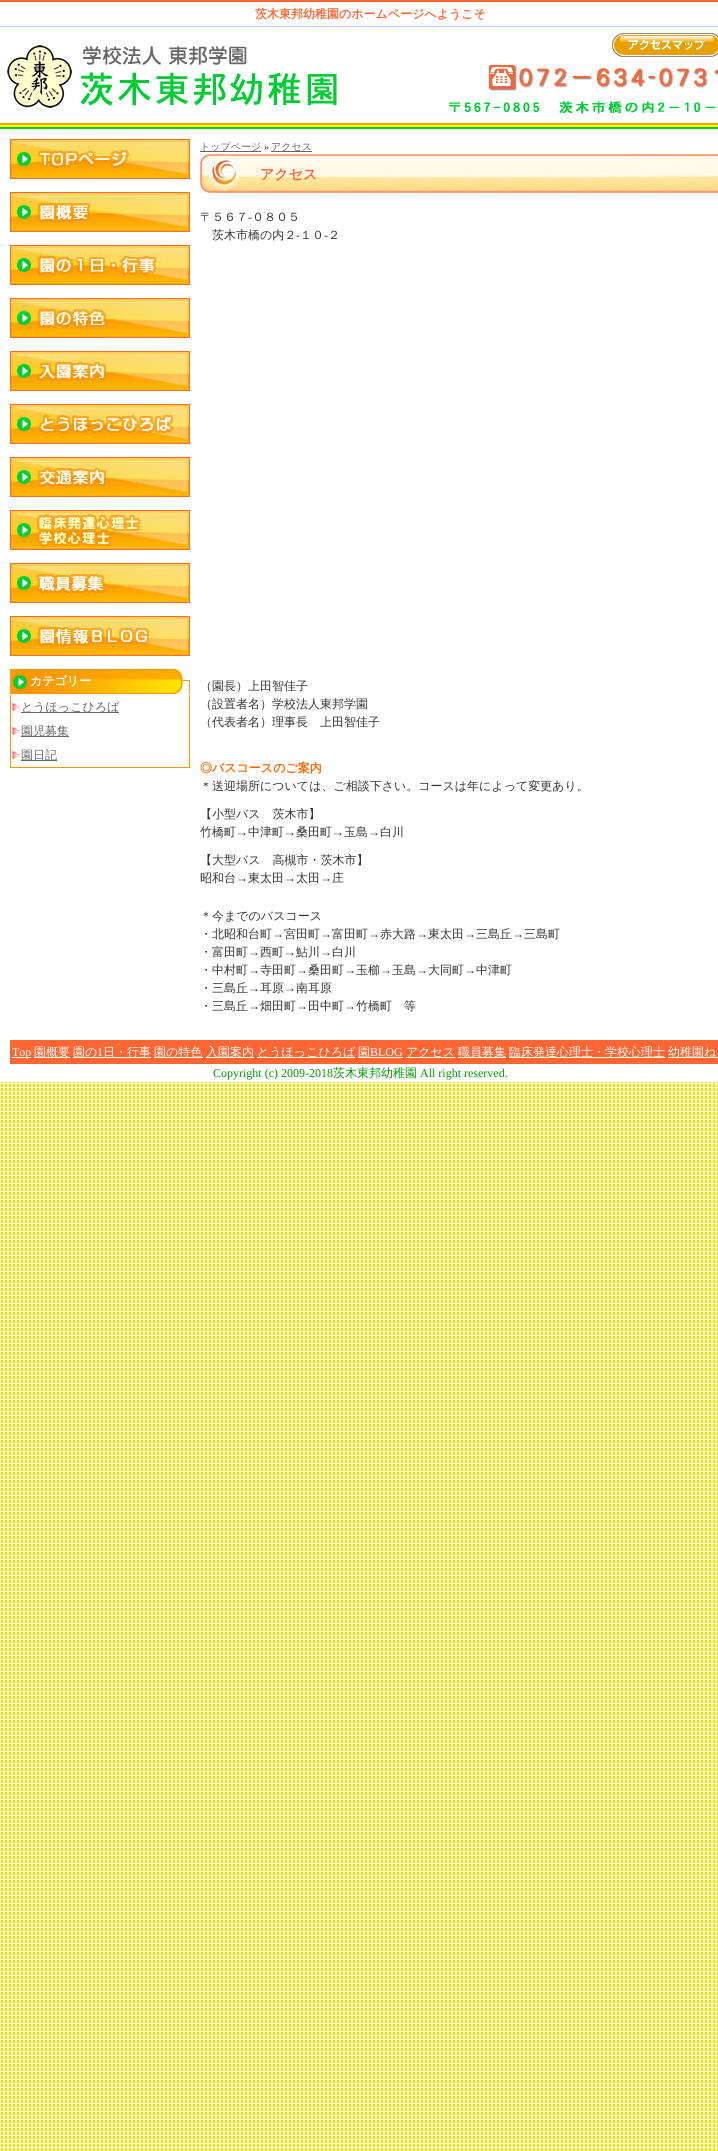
#include <cairo.h>
#include <math.h>
#include <stddef.h>

static cairo_t *c;
static void C(unsigned color){cairo_set_source_rgb(c, (color >> 16) / 255.0, (color >> 8 & 255) / 255.0, (color & 255) / 255.0);}
static void F(const char *family, double size, int italic, int bold){cairo_select_font_face(c, family, italic ? CAIRO_FONT_SLANT_ITALIC : CAIRO_FONT_SLANT_NORMAL,bold ? CAIRO_FONT_WEIGHT_BOLD : CAIRO_FONT_WEIGHT_NORMAL);cairo_set_font_size(c, size);}
static void T(double x, double y, const char *s){cairo_move_to(c, x, y);cairo_show_text(c, s);}
static void R(double x, double y, double w, double h){cairo_rectangle(c, x, y, w, h);cairo_fill(c);}
static void I(const char *path, double x, double y, double w, double h){cairo_surface_t *image = cairo_image_surface_create_from_png(path);cairo_save(c);cairo_set_source_surface(c, image, x, y);cairo_rectangle(c, x, y, w, h);cairo_fill(c);cairo_restore(c);cairo_surface_destroy(image);}
int main(void) {
cairo_surface_t *surface = cairo_image_surface_create(CAIRO_FORMAT_RGB24, 718, 2151);
c = cairo_create(surface);
cairo_font_options_t *options = cairo_font_options_create();
cairo_font_options_set_hint_metrics(options, CAIRO_HINT_METRICS_OFF);
cairo_font_options_set_hint_style(options, CAIRO_HINT_STYLE_NONE);
cairo_set_font_options(c, options);
cairo_set_miter_limit(c, 4);
C(0xffffff);
cairo_paint(c);
I("1.png",0,1082,718,1069);
C(0xff6633);
R(0,0,718,2);
C(0xbbd3ff);
R(0,26,718,1);
F("WenQuanYi Zen Hei",12,0,1);
C(0xff6633);
T(255,18,"茨木東邦幼稚園のホームページへようこそ");
I("2.png",0,45,718,84);
I("3.png",612,33,106,24);
I("4.png",10,139,180,40);
I("5.png",10,192,180,40);
I("6.png",10,245,180,40);
I("7.png",10,298,180,40);
I("8.png",10,351,180,40);
I("9.png",10,404,180,40);
I("10.png",10,457,180,40);
I("11.png",10,510,180,40);
I("12.png",10,563,180,40);
I("13.png",10,616,180,40);
I("14.png",10,669,180,25);
C(0xffffff);
T(30,685,"カテゴリー");
C(0xff9900);
R(189,695,1,73);
R(10,767,180,1);
R(10,695,1,73);
I("15.png",12,702,8,10);
C(0x666666);
R(21,712,98,1);
F("WenQuanYi Zen Hei Medium",12,0,0);
T(21,711,"とうほっこひろば");
I("15.png",12,726,8,10);
R(21,736,48,1);
T(21,735,"園児募集");
I("15.png",12,750,8,10);
R(21,760,36,1);
T(21,759,"園日記");
R(200,151,61,1);
F("WenQuanYi Zen Hei Medium",10,0,0);
T(200,150,"トップページ");
F("Liberation Serif",10,0,0);
C(0x333333);
T(264,150,"»");
C(0x666666);
R(271,151,41,1);
F("WenQuanYi Zen Hei Medium",10,0,0);
T(271,150,"アクセス");
I("16.png",200,154,518,39);
F("WenQuanYi Zen Hei",14,0,1);
C(0xff6633);
T(260,179,"アクセス");
F("WenQuanYi Zen Hei Medium",12,0,0);
C(0x333333);
T(200,221,"〒５６７");
F("Liberation Serif",12,0,0);
T(248,221,"-");
F("WenQuanYi Zen Hei Medium",12,0,0);
T(252,221,"０８０５");
T(212,239,"茨木市橋の内２");
F("Liberation Serif",12,0,0);
T(296,239,"-");
F("WenQuanYi Zen Hei Medium",12,0,0);
T(300,239,"１０");
F("Liberation Serif",12,0,0);
T(324,239,"-");
F("WenQuanYi Zen Hei Medium",12,0,0);
T(328,239,"２");
T(200,690,"（園長）上田智佳子");
T(200,708,"（設置者名）学校法人東邦学園");
T(200,726,"（代表者名）理事長　上田智佳子");
F("WenQuanYi Zen Hei",12,0,1);
C(0xff6600);
T(200,772,"◎バスコースのご案内");
F("WenQuanYi Zen Hei Medium",12,0,0);
C(0x333333);
T(200,790,"＊送迎場所については、ご相談下さい。コースは年によって変更あり。");
T(200,818,"【小型バス　茨木市】");
T(200,836,"竹橋町");
F("Liberation Serif",12,0,0);
T(236,836,"→");
F("WenQuanYi Zen Hei Medium",12,0,0);
T(248,836,"中津町");
F("Liberation Serif",12,0,0);
T(284,836,"→");
F("WenQuanYi Zen Hei Medium",12,0,0);
T(296,836,"桑田町");
F("Liberation Serif",12,0,0);
T(332,836,"→");
F("WenQuanYi Zen Hei Medium",12,0,0);
T(344,836,"玉島");
F("Liberation Serif",12,0,0);
T(368,836,"→");
F("WenQuanYi Zen Hei Medium",12,0,0);
T(380,836,"白川");
T(200,864,"【大型バス　高槻市・茨木市】");
T(200,882,"昭和台");
F("Liberation Serif",12,0,0);
T(236,882,"→");
F("WenQuanYi Zen Hei Medium",12,0,0);
T(248,882,"東太田");
F("Liberation Serif",12,0,0);
T(284,882,"→");
F("WenQuanYi Zen Hei Medium",12,0,0);
T(296,882,"太田");
F("Liberation Serif",12,0,0);
T(320,882,"→");
F("WenQuanYi Zen Hei Medium",12,0,0);
T(332,882,"庄");
T(200,920,"＊今までのバスコース");
T(200,938,"・北昭和台町");
F("Liberation Serif",12,0,0);
T(272,938,"→");
F("WenQuanYi Zen Hei Medium",12,0,0);
T(284,938,"宮田町");
F("Liberation Serif",12,0,0);
T(320,938,"→");
F("WenQuanYi Zen Hei Medium",12,0,0);
T(332,938,"富田町");
F("Liberation Serif",12,0,0);
T(368,938,"→");
F("WenQuanYi Zen Hei Medium",12,0,0);
T(380,938,"赤大路");
F("Liberation Serif",12,0,0);
T(416,938,"→");
F("WenQuanYi Zen Hei Medium",12,0,0);
T(428,938,"東太田");
F("Liberation Serif",12,0,0);
T(464,938,"→");
F("WenQuanYi Zen Hei Medium",12,0,0);
T(476,938,"三島丘");
F("Liberation Serif",12,0,0);
T(512,938,"→");
F("WenQuanYi Zen Hei Medium",12,0,0);
T(524,938,"三島町");
T(200,956,"・富田町");
F("Liberation Serif",12,0,0);
T(248,956,"→");
F("WenQuanYi Zen Hei Medium",12,0,0);
T(260,956,"西町");
F("Liberation Serif",12,0,0);
T(284,956,"→");
F("WenQuanYi Zen Hei Medium",12,0,0);
T(296,956,"鮎川");
F("Liberation Serif",12,0,0);
T(320,956,"→");
F("WenQuanYi Zen Hei Medium",12,0,0);
T(332,956,"白川");
T(200,974,"・中村町");
F("Liberation Serif",12,0,0);
T(248,974,"→");
F("WenQuanYi Zen Hei Medium",12,0,0);
T(260,974,"寺田町");
F("Liberation Serif",12,0,0);
T(296,974,"→");
F("WenQuanYi Zen Hei Medium",12,0,0);
T(308,974,"桑田町");
F("Liberation Serif",12,0,0);
T(344,974,"→");
F("WenQuanYi Zen Hei Medium",12,0,0);
T(356,974,"玉櫛");
F("Liberation Serif",12,0,0);
T(380,974,"→");
F("WenQuanYi Zen Hei Medium",12,0,0);
T(392,974,"玉島");
F("Liberation Serif",12,0,0);
T(416,974,"→");
F("WenQuanYi Zen Hei Medium",12,0,0);
T(428,974,"大同町");
F("Liberation Serif",12,0,0);
T(464,974,"→");
F("WenQuanYi Zen Hei Medium",12,0,0);
T(476,974,"中津町");
T(200,992,"・三島丘");
F("Liberation Serif",12,0,0);
T(248,992,"→");
F("WenQuanYi Zen Hei Medium",12,0,0);
T(260,992,"耳原");
F("Liberation Serif",12,0,0);
T(284,992,"→");
F("WenQuanYi Zen Hei Medium",12,0,0);
T(296,992,"南耳原");
T(200,1010,"・三島丘");
F("Liberation Serif",12,0,0);
T(248,1010,"→");
F("WenQuanYi Zen Hei Medium",12,0,0);
T(260,1010,"畑田町");
F("Liberation Serif",12,0,0);
T(296,1010,"→");
F("WenQuanYi Zen Hei Medium",12,0,0);
T(308,1010,"田中町");
F("Liberation Serif",12,0,0);
T(344,1010,"→");
F("WenQuanYi Zen Hei Medium",12,0,0);
T(356,1010,"竹橋町　等");
C(0xff6633);
R(10,1040,708,24);
C(0xffffff);
R(12,1057,19,1);
F("Liberation Serif",12,0,0);
T(12,1056,"Top");
R(34,1057,36,1);
F("WenQuanYi Zen Hei Medium",12,0,0);
T(34,1056,"園概要");
R(73,1057,78,1);
T(73,1056,"園の");
F("Liberation Serif",12,0,0);
T(97,1056,"1");
F("WenQuanYi Zen Hei Medium",12,0,0);
T(103,1056,"日・行事");
R(154,1057,49,1);
T(154,1056,"園の特色");
R(206,1057,48,1);
T(206,1056,"入園案内");
R(257,1057,98,1);
T(257,1056,"とうほっこひろば");
R(358,1057,45,1);
T(358,1056,"園");
F("Liberation Serif",12,0,0);
T(370,1056,"BLOG");
R(406,1057,49,1);
F("WenQuanYi Zen Hei Medium",12,0,0);
T(406,1056,"アクセス");
R(458,1057,48,1);
T(458,1056,"職員募集");
R(509,1057,156,1);
T(509,1056,"臨床発達心理士・学校心理士");
R(668,1057,50,1);
T(668,1056,"幼稚園ね");
F("Liberation Serif",12,0,0);
C(0x029b02);
T(213,1077,"Copyright (c) 2009-2018");
F("WenQuanYi Zen Hei Medium",12,0,0);
T(333,1077,"茨木東邦幼稚園");
F("Liberation Serif",12,0,0);
T(420,1077,"All right reserved.");
cairo_surface_write_to_png(surface, "o.png");
cairo_font_options_destroy(options);
cairo_destroy(c);
cairo_surface_destroy(surface);
return 0;
}
